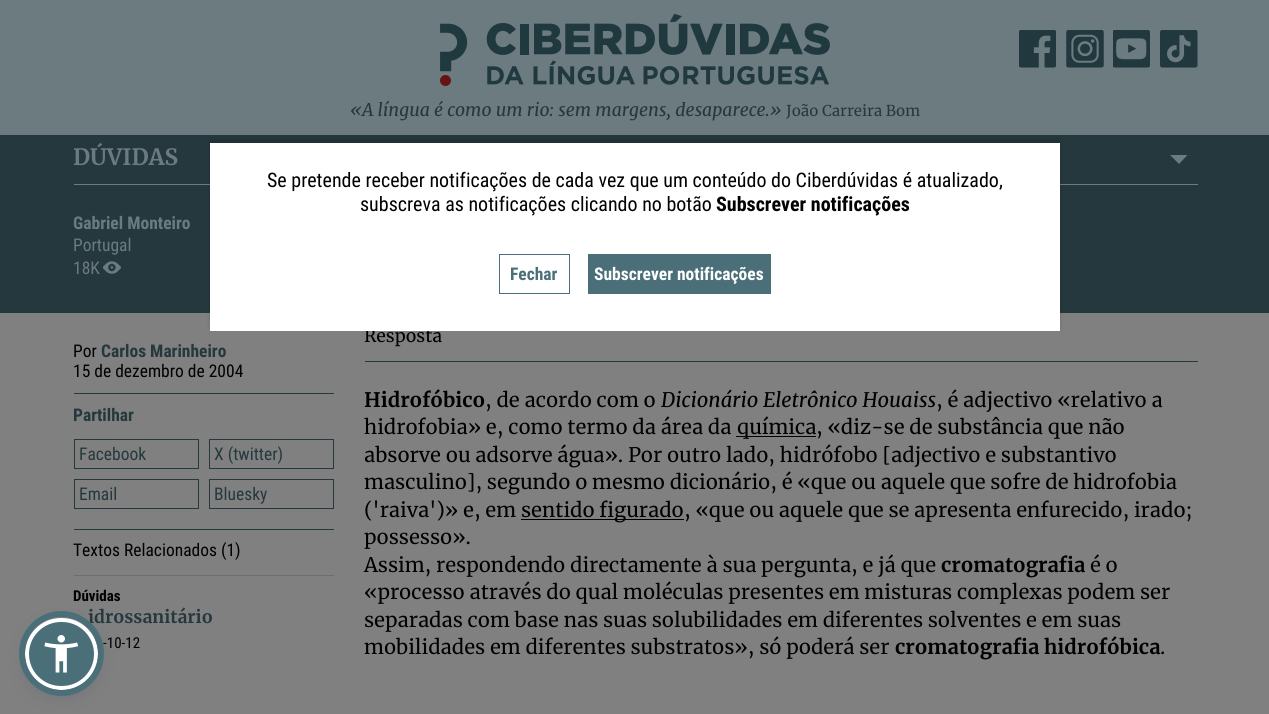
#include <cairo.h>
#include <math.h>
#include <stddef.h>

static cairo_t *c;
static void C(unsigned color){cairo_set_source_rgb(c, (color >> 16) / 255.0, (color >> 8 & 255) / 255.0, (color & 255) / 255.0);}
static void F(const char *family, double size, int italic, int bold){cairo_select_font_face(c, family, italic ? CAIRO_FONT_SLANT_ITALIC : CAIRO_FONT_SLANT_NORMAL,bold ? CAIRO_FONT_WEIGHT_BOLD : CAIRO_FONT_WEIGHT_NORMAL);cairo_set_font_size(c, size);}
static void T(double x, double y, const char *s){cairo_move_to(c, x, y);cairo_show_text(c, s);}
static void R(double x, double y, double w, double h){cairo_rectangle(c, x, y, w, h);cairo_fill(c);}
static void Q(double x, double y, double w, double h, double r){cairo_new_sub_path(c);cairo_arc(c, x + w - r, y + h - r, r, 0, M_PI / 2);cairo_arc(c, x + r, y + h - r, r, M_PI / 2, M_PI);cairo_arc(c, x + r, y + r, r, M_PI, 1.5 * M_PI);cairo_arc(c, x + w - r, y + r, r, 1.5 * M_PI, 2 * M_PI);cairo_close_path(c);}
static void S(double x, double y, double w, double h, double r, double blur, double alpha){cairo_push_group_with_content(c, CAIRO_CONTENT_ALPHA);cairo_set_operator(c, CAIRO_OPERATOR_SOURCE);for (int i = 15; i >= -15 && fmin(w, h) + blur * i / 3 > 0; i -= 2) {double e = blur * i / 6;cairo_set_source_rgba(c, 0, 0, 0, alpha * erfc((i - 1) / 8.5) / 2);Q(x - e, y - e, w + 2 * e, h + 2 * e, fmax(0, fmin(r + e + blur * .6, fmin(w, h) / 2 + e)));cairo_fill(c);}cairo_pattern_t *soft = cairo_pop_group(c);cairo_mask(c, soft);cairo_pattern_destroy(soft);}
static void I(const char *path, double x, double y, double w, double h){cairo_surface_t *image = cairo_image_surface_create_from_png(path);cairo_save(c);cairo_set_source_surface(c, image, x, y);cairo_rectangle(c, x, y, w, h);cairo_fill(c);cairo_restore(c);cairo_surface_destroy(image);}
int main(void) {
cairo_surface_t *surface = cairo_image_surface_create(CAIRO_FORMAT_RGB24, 1269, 714);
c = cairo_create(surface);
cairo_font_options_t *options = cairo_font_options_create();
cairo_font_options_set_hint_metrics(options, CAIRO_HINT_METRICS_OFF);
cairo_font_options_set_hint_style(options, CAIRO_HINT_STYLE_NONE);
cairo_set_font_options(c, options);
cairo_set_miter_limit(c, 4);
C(0x808080);
cairo_paint(c);
C(0x252c61);
S(25,624,73,72,36,9.5,.15);
F("Merriweather",17.5,0,1);
C(0x25383d);
T(88,623,"idrossanitário");
C(0x4a6f79);
Q(27,620,69,68,34);
cairo_fill_preserve(c);
C(0xffffff);
cairo_set_line_width(c,4);
cairo_stroke(c);
F("Roboto Condensed",15,0,0);
C(0x000000);
T(103,648,"-10-12");
cairo_new_path(c);
cairo_arc(c,61.5,653.5,39.5,0,2 * M_PI);
C(0x4a6f79);
cairo_set_line_width(c,6);
cairo_stroke(c);
I("1.png",44,635,35,38);
C(0x6b7b80);
R(0,0,1269,135);
I("2.png",440,14,390,72);
I("3.png",1019,30,37,38);
I("4.png",1066,30,38,38);
I("5.png",1113,30,37,38);
I("6.png",1160,30,38,38);
F("Merriweather",17.5,1,0);
C(0x25383d);
T(350,116,"«A língua é como um rio: sem margens, desaparece.»");
F("Merriweather",15,0,0);
T(786,116,"João Carreira Bom");
R(0,135,1269,178);
C(0x6b7b80);
R(74,184,1124,1);
F("Merriweather",22.5,0,1);
T(73,165,"DÚVIDAS");
cairo_new_path(c);
cairo_move_to(c,1170,155);
cairo_line_to(c,1187.5,155);
cairo_line_to(c,1179,164);
cairo_close_path(c);
cairo_fill(c);
F("Roboto Condensed",17.5,0,1);
T(73,229,"Gabriel Monteiro");
F("Roboto Condensed",17.5,0,0);
T(73,251,"Portugal");
T(73,274,"18K");
I("7.png",103,261,18,13);
C(0x000000);
T(73,357,"Por");
F("Roboto Condensed",17.5,0,1);
C(0x25383d);
T(101,357,"Carlos Marinheiro");
F("Roboto Condensed",17.5,0,0);
C(0x000000);
T(73,377,"15 de dezembro de 2004");
C(0x25383d);
R(74,393,260,1);
F("Roboto Condensed",17.5,0,1);
T(73,421,"Partilhar");
cairo_rectangle(c,74.5,439.5,124,29);
cairo_set_line_width(c,1);
cairo_stroke(c);
F("Roboto Condensed",17.5,0,0);
T(79,460,"Facebook");
cairo_rectangle(c,209.5,439.5,124,29);
cairo_stroke(c);
T(214,460,"X (twitter)");
cairo_rectangle(c,74.5,479.5,124,29);
cairo_stroke(c);
T(79,500,"Email");
cairo_rectangle(c,209.5,479.5,124,29);
cairo_stroke(c);
T(214,500,"Bluesky");
R(74,529,260,1);
C(0x000000);
T(73,556,"Textos Relacionados (1)");
C(0x696e6f);
R(74,575,260,1);
F("Roboto Condensed",15,0,1);
C(0x000000);
T(73,601,"Dúvidas");
C(0x25383d);
R(365,361,833,1);
F("Merriweather",17.5,0,0);
C(0x000000);
T(364,342,"Resposta");
F("Merriweather",20,0,1);
T(364,407,"Hidrofóbico");
F("Merriweather",20,0,0);
T(485,407,", de acordo com o");
F("Merriweather",20,1,0);
T(661,407,"Dicionário Eletrônico Houaiss");
F("Merriweather",20,0,0);
T(936,407,", é adjectivo «relativo a");
T(364,434,"hidrofobia» e, como termo da área da");
R(736,436,80,1);
T(737,434,"química");
T(816,434,", «diz-se de substância que não");
T(364,462,"absorve ou adsorve água». Por outro lado, hidrófobo [adjectivo e substantivo");
T(364,489,"masculino], segundo o mesmo dicionário, é «que ou aquele que sofre de hidrofobia");
T(364,517,"('raiva')» e, em");
R(521,519,163,1);
T(521,517,"sentido figurado");
T(684,517,", «que ou aquele que se apresenta enfurecido, irado;");
T(364,544,"possesso».");
T(364,572,"Assim, respondendo directamente à sua pergunta, e já que");
F("Merriweather",20,0,1);
T(941,572,"cromatografia");
F("Merriweather",20,0,0);
T(1090,572,"é o");
T(364,599,"«processo através do qual moléculas presentes em misturas complexas podem ser");
T(364,627,"separadas com base nas suas solubilidades em diferentes solventes e em suas");
T(364,654,"mobilidades em diferentes substratos», só poderá ser");
F("Merriweather",20,0,1);
T(895,654,"cromatografia hidrofóbica");
F("Merriweather",20,0,0);
T(1160,654,".");
C(0x000000);
S(210,139,850,189,0,2,.15);
C(0xffffff);
R(210,143,850,188);
F("Roboto Condensed",20,0,0);
C(0x000000);
T(267,187,"Se pretende receber notificações de cada vez que um conteúdo do Ciberdúvidas é atualizado,");
T(360,211,"subscreva as notificações clicando no botão");
F("Roboto Condensed",20,0,1);
T(716,211,"Subscrever notificações");
cairo_rectangle(c,499.5,254.5,70,39);
C(0x4a6f79);
cairo_stroke(c);
F("Roboto Condensed",17.5,0,1);
T(510,280,"Fechar");
R(588,254,183,40);
C(0xffffff);
T(594,280,"Subscrever notificações");
cairo_surface_write_to_png(surface, "o.png");
cairo_font_options_destroy(options);
cairo_destroy(c);
cairo_surface_destroy(surface);
return 0;
}
